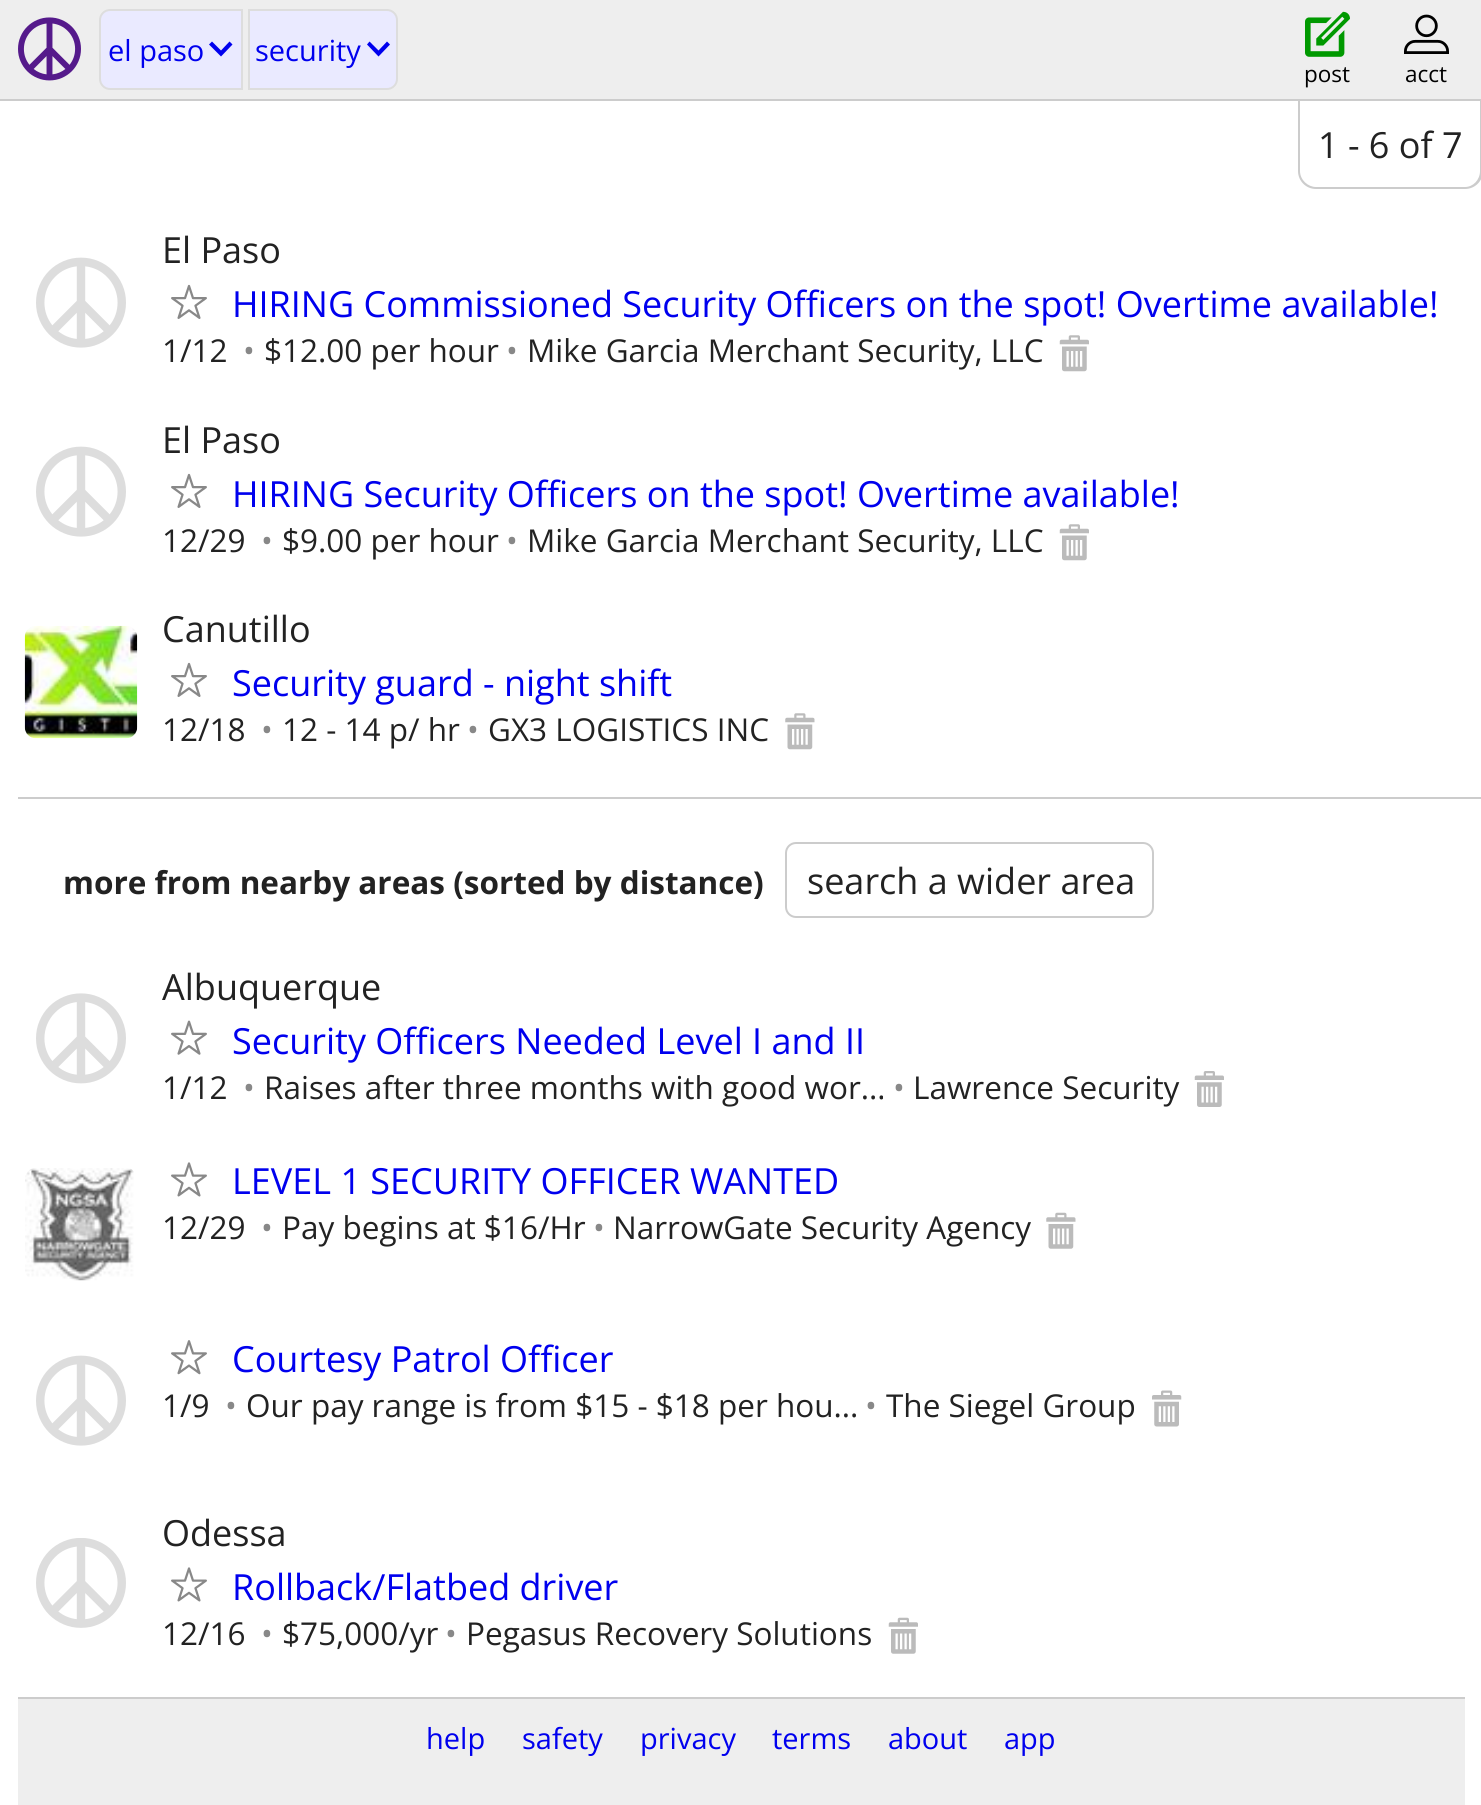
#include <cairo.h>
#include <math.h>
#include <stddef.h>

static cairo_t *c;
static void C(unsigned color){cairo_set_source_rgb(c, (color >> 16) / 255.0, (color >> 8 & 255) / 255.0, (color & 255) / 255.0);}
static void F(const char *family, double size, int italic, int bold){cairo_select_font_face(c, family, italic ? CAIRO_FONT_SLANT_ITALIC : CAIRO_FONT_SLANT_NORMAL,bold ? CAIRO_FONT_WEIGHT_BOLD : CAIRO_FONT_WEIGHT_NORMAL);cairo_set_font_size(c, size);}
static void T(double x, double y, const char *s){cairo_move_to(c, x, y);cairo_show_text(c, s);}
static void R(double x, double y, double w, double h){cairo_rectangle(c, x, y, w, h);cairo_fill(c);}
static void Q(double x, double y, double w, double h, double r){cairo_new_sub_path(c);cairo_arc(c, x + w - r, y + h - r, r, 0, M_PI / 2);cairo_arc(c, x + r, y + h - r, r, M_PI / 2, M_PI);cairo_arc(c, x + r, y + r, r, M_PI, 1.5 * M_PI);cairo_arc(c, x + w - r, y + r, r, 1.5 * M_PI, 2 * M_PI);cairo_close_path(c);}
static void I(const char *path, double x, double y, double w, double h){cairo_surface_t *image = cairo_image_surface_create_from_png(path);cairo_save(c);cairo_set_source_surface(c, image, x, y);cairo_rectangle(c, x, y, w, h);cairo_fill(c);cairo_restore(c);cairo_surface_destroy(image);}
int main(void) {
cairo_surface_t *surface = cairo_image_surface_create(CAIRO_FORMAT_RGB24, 1481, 1805);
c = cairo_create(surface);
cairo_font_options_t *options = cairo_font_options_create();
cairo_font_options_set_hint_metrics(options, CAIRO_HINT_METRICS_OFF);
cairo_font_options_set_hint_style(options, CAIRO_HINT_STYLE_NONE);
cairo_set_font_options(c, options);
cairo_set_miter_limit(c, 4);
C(0xffffff);
cairo_paint(c);
C(0xeeeeee);
R(0,0,1481,99);
C(0xcccccc);
R(0,99,1481,2);
I("1.png",18,17,63,64);
C(0xeaeaff);
cairo_new_path(c);
cairo_move_to(c,110,10);
cairo_line_to(c,242,10);
cairo_line_to(c,242,89);
cairo_line_to(c,110,89);
cairo_curve_to(c,104.5,89,100,84.5,100,79);
cairo_line_to(c,100,20);
cairo_curve_to(c,100,14.5,104.5,10,110,10);
cairo_close_path(c);
cairo_fill_preserve(c);
C(0xdddddd);
cairo_stroke(c);
F("Open Sans",29,0,0);
C(0x0000ee);
T(108,61,"el paso");
cairo_new_path(c);
cairo_move_to(c,232.5,44.5);
cairo_line_to(c,229.5,41.5);
cairo_line_to(c,221,50.5);
cairo_line_to(c,212,41.5);
cairo_line_to(c,209,44.5);
cairo_line_to(c,221,56.5);
cairo_close_path(c);
cairo_fill(c);
C(0xeaeaff);
cairo_new_path(c);
cairo_move_to(c,249,10);
cairo_line_to(c,387,10);
cairo_curve_to(c,392.5,10,397,14.5,397,20);
cairo_line_to(c,397,79);
cairo_curve_to(c,397,84.5,392.5,89,387,89);
cairo_line_to(c,249,89);
cairo_close_path(c);
cairo_fill_preserve(c);
C(0xdddddd);
cairo_stroke(c);
C(0x0000ee);
T(255,61,"security");
cairo_new_path(c);
cairo_move_to(c,390,44.5);
cairo_line_to(c,387,41.5);
cairo_line_to(c,378.5,50.5);
cairo_line_to(c,369.5,41.5);
cairo_line_to(c,367,44.5);
cairo_line_to(c,378.5,56.5);
cairo_close_path(c);
cairo_fill(c);
I("2.png",1305,11,45,46);
F("Open Sans",22.5,0,0);
C(0x000000);
T(1304,82,"post");
I("3.png",1404,14,45,40);
T(1405,82,"acct");
C(0xcccccc);
cairo_set_fill_rule(c,CAIRO_FILL_RULE_EVEN_ODD);
cairo_new_path(c);
cairo_move_to(c,1298,101);
cairo_line_to(c,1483,101);
cairo_line_to(c,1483,171);
cairo_curve_to(c,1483,181,1475,189,1465,189);
cairo_line_to(c,1316,189);
cairo_curve_to(c,1306,189,1298,181,1298,171);
cairo_close_path(c);
cairo_move_to(c,1300,101);
cairo_line_to(c,1480,101);
cairo_line_to(c,1480,171);
cairo_curve_to(c,1480,180,1473,187,1465,187);
cairo_line_to(c,1316,187);
cairo_curve_to(c,1308,187,1300,180,1300,171);
cairo_close_path(c);
cairo_fill(c);
F("Open Sans",36,0,0);
C(0x222222);
T(1318,158,"1 - 6 of 7");
I("4.png",36,257,90,91);
T(162,263,"El Paso");
I("5.png",171,284,36,35);
C(0x0000ee);
T(232,317,"HIRING Commissioned Security Officers on the spot! Overtime available!");
F("Open Sans",31.5,0,0);
C(0x222222);
T(162,362,"1/12");
C(0x888888);
T(243,362,"•");
C(0x222222);
T(264,362,"$12.00 per hour");
C(0x888888);
T(506,362,"•");
C(0x222222);
T(527,362,"Mike Garcia Merchant Security, LLC");
I("6.png",1059,335,30,37);
I("4.png",36,446,90,91);
F("Open Sans",36,0,0);
T(162,453,"El Paso");
I("5.png",171,473,36,35);
C(0x0000ee);
T(232,507,"HIRING Security Officers on the spot! Overtime available!");
F("Open Sans",31.5,0,0);
C(0x222222);
T(162,552,"12/29");
C(0x888888);
T(261,552,"•");
C(0x222222);
T(282,552,"$9.00 per hour");
C(0x888888);
T(506,552,"•");
C(0x222222);
T(527,552,"Mike Garcia Merchant Security, LLC");
I("6.png",1059,524,30,37);
I("7.png",24,625,114,114);
F("Open Sans",36,0,0);
T(162,642,"Canutillo");
I("5.png",171,662,36,35);
C(0x0000ee);
T(232,696,"Security guard - night shift");
F("Open Sans",31.5,0,0);
C(0x222222);
T(162,741,"12/18");
C(0x888888);
T(261,741,"•");
C(0x222222);
T(282,741,"12 - 14 p/ hr");
C(0x888888);
T(467,741,"•");
C(0x222222);
T(488,741,"GX3 LOGISTICS INC");
I("8.png",785,713,30,37);
C(0xcccccc);
R(18,797,1463,2);
F("Open Sans",31.5,0,1);
C(0x222222);
T(63,894,"more from nearby areas (sorted by distance)");
Q(786,843,367,74,10);
C(0xcccccc);
cairo_stroke(c);
F("Open Sans",36,0,0);
C(0x222222);
T(807,894,"search a wider area");
I("9.png",36,993,90,91);
T(162,1000,"Albuquerque");
I("10.png",171,1020,36,35);
C(0x0000ee);
T(232,1054,"Security Officers Needed Level I and II");
F("Open Sans",31.5,0,0);
C(0x222222);
T(162,1099,"1/12");
C(0x888888);
T(243,1099,"•");
C(0x222222);
T(264,1099,"Raises after three months with good wor...");
C(0x888888);
T(893,1099,"•");
C(0x222222);
T(913,1099,"Lawrence Security");
I("11.png",1194,1071,30,36);
I("12.png",25,1168,109,113);
I("13.png",171,1162,36,35);
F("Open Sans",36,0,0);
C(0x0000ee);
T(232,1194,"LEVEL 1 SECURITY OFFICER WANTED");
F("Open Sans",31.5,0,0);
C(0x222222);
T(162,1239,"12/29");
C(0x888888);
T(261,1239,"•");
C(0x222222);
T(282,1239,"Pay begins at $16/Hr");
C(0x888888);
T(593,1239,"•");
C(0x222222);
T(613,1239,"NarrowGate Security Agency");
I("14.png",1046,1212,30,37);
I("4.png",36,1355,90,91);
I("15.png",171,1340,36,35);
F("Open Sans",36,0,0);
C(0x0000ee);
T(232,1372,"Courtesy Patrol Officer");
F("Open Sans",31.5,0,0);
C(0x222222);
T(162,1417,"1/9");
C(0x888888);
T(225,1417,"•");
C(0x222222);
T(246,1417,"Our pay range is from $15 - $18 per hou...");
C(0x888888);
T(865,1417,"•");
C(0x222222);
T(886,1417,"The Siegel Group");
I("16.png",1152,1390,30,37);
I("17.png",36,1538,90,90);
F("Open Sans",36,0,0);
T(162,1546,"Odessa");
I("13.png",171,1567,36,35);
C(0x0000ee);
T(232,1600,"Rollback/Flatbed driver");
F("Open Sans",31.5,0,0);
C(0x222222);
T(162,1645,"12/16");
C(0x888888);
T(261,1645,"•");
C(0x222222);
T(282,1645,"$75,000/yr");
C(0x888888);
T(445,1645,"•");
C(0x222222);
T(466,1645,"Pegasus Recovery Solutions");
I("18.png",888,1617,30,37);
C(0xeeeeee);
R(18,1699,1447,106);
C(0xcccccc);
R(18,1697,1447,2);
F("Open Sans",29,0,0);
C(0x0000ee);
T(426,1749,"help");
T(522,1749,"safety");
T(640,1749,"privacy");
T(772,1749,"terms");
T(888,1749,"about");
T(1004,1749,"app");
cairo_surface_write_to_png(surface, "o.png");
cairo_font_options_destroy(options);
cairo_destroy(c);
cairo_surface_destroy(surface);
return 0;
}
